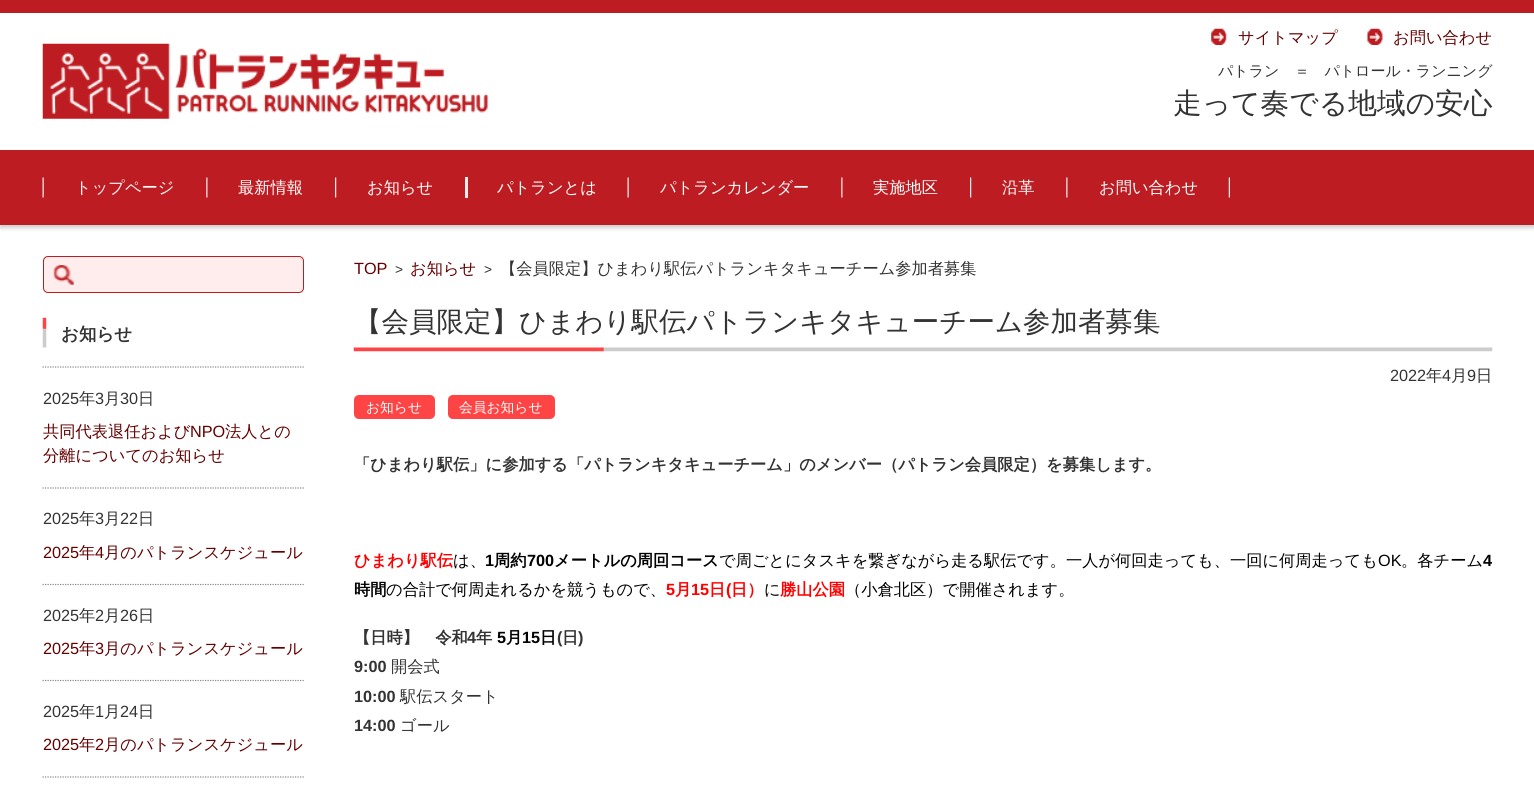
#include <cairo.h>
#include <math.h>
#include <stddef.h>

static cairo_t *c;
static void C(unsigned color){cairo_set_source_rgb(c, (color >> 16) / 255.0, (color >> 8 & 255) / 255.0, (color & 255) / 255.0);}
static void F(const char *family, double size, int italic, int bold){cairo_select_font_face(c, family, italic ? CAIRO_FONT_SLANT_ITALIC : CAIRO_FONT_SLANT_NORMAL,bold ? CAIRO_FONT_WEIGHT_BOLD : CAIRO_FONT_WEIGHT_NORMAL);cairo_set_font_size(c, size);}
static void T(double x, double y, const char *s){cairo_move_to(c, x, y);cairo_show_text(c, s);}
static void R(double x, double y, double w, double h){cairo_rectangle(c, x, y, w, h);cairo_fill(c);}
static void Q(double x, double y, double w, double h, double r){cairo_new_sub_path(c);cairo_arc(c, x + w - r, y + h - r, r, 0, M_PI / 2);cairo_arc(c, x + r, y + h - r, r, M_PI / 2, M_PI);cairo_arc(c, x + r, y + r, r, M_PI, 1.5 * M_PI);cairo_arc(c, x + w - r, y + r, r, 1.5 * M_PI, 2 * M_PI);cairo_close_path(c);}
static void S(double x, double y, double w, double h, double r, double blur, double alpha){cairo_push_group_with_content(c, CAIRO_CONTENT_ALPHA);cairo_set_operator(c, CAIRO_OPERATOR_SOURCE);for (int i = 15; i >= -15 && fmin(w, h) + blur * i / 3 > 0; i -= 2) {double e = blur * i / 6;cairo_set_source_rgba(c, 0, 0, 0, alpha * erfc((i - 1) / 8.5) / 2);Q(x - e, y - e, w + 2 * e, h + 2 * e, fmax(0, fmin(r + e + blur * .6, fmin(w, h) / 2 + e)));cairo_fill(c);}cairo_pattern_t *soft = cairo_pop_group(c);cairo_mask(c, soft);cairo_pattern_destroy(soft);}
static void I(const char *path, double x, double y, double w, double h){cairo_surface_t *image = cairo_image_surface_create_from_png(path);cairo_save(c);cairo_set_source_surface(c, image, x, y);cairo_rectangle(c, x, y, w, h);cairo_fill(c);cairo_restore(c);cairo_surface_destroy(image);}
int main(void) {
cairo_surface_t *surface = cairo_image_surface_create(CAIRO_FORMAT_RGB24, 1534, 802);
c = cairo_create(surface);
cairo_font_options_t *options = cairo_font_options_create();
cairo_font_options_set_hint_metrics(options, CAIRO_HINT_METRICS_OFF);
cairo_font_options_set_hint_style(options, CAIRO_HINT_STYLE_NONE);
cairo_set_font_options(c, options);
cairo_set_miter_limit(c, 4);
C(0xffffff);
cairo_paint(c);
C(0xbd1d22);
R(0,0,1534,13);
I("1.png",42,43,447,76);
I("2.png",1211,28,16,17);
F("WenQuanYi Zen Hei Medium",16.25,0,0);
C(0x640000);
T(1238,43,"サイトマップ");
I("3.png",1367,28,16,17);
T(1393,43,"お問い合わせ");
F("WenQuanYi Zen Hei Medium",15,0,0);
C(0x333333);
T(1218,76,"パトラン　＝　パトロール・ランニング");
F("WenQuanYi Zen Hei Medium",28.75,0,0);
T(1173,113,"走って奏でる地域の安心");
C(0x000000);
S(0,153,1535,75,0,2,.2);
C(0xbd1d22);
R(0,150,1534,75);
I("4.png",42,177,2,21);
F("WenQuanYi Zen Hei Medium",16.25,0,0);
C(0xffffff);
T(75,193,"トップページ");
I("5.png",206,177,2,21);
T(238,193,"最新情報");
I("6.png",335,177,2,21);
T(367,193,"お知らせ");
C(0xeeeeee);
R(465,177,3,21);
C(0xffffff);
T(497,193,"パトランとは");
I("4.png",627,177,2,21);
T(660,193,"パトランカレンダー");
I("5.png",841,177,2,21);
T(873,193,"実施地区");
I("6.png",970,177,2,21);
T(1002,193,"沿革");
I("7.png",1066,177,164,21);
T(1099,193,"お問い合わせ");
C(0xffecec);
Q(43,256,261,37,5);
cairo_fill(c);
I("8.png",53,265,21,20);
Q(43.5,256.5,260,36,4.5);
C(0xbd1d22);
cairo_set_line_width(c,1);
cairo_stroke(c);
I("9.png",42,317,5,31);
F("WenQuanYi Zen Hei",17.5,0,1);
C(0x333333);
T(61,340,"お知らせ");
cairo_new_path(c);
cairo_move_to(c,42.5,367);
cairo_line_to(c,304,367);
C(0x888888);
cairo_set_line_width(c,1.2);
cairo_set_dash(c,(double[]){1.25,1.25},2,0);
cairo_stroke(c);
cairo_new_path(c);
cairo_move_to(c,42.5,488);
cairo_line_to(c,304,488);
cairo_stroke(c);
F("Liberation Sans",16.25,0,0);
C(0x333333);
T(43,404,"2025");
F("WenQuanYi Zen Hei Medium",16.25,0,0);
T(79,404,"年");
F("Liberation Sans",16.25,0,0);
T(95,404,"3");
F("WenQuanYi Zen Hei Medium",16.25,0,0);
T(104,404,"月");
F("Liberation Sans",16.25,0,0);
T(120,404,"30");
F("WenQuanYi Zen Hei Medium",16.25,0,0);
T(138,404,"日");
C(0x640000);
T(43,437,"共同代表退任および");
F("Liberation Sans",16.25,0,0);
T(190,437,"NPO");
F("WenQuanYi Zen Hei Medium",16.25,0,0);
T(225,437,"法人との");
T(43,461,"分離についてのお知らせ");
cairo_new_path(c);
cairo_move_to(c,42.5,584.5);
cairo_line_to(c,304,584.5);
C(0x888888);
cairo_stroke(c);
F("Liberation Sans",16.25,0,0);
C(0x333333);
T(43,524,"2025");
F("WenQuanYi Zen Hei Medium",16.25,0,0);
T(79,524,"年");
F("Liberation Sans",16.25,0,0);
T(95,524,"3");
F("WenQuanYi Zen Hei Medium",16.25,0,0);
T(104,524,"月");
F("Liberation Sans",16.25,0,0);
T(120,524,"22");
F("WenQuanYi Zen Hei Medium",16.25,0,0);
T(138,524,"日");
F("Liberation Sans",16.25,0,0);
C(0x640000);
T(43,558,"2025");
F("WenQuanYi Zen Hei Medium",16.25,0,0);
T(79,558,"年");
F("Liberation Sans",16.25,0,0);
T(95,558,"4");
F("WenQuanYi Zen Hei Medium",16.25,0,0);
T(104,558,"月のパトランスケジュール");
cairo_new_path(c);
cairo_move_to(c,42.5,680.5);
cairo_line_to(c,304,680.5);
C(0x888888);
cairo_stroke(c);
F("Liberation Sans",16.25,0,0);
C(0x333333);
T(43,621,"2025");
F("WenQuanYi Zen Hei Medium",16.25,0,0);
T(79,621,"年");
F("Liberation Sans",16.25,0,0);
T(95,621,"2");
F("WenQuanYi Zen Hei Medium",16.25,0,0);
T(104,621,"月");
F("Liberation Sans",16.25,0,0);
T(120,621,"26");
F("WenQuanYi Zen Hei Medium",16.25,0,0);
T(138,621,"日");
F("Liberation Sans",16.25,0,0);
C(0x640000);
T(43,654,"2025");
F("WenQuanYi Zen Hei Medium",16.25,0,0);
T(79,654,"年");
F("Liberation Sans",16.25,0,0);
T(95,654,"3");
F("WenQuanYi Zen Hei Medium",16.25,0,0);
T(104,654,"月のパトランスケジュール");
cairo_new_path(c);
cairo_move_to(c,42.5,777);
cairo_line_to(c,304,777);
C(0x888888);
cairo_stroke(c);
F("Liberation Sans",16.25,0,0);
C(0x333333);
T(43,717,"2025");
F("WenQuanYi Zen Hei Medium",16.25,0,0);
T(79,717,"年");
F("Liberation Sans",16.25,0,0);
T(95,717,"1");
F("WenQuanYi Zen Hei Medium",16.25,0,0);
T(104,717,"月");
F("Liberation Sans",16.25,0,0);
T(120,717,"24");
F("WenQuanYi Zen Hei Medium",16.25,0,0);
T(138,717,"日");
F("Liberation Sans",16.25,0,0);
C(0x640000);
T(43,750,"2025");
F("WenQuanYi Zen Hei Medium",16.25,0,0);
T(79,750,"年");
F("Liberation Sans",16.25,0,0);
T(95,750,"2");
F("WenQuanYi Zen Hei Medium",16.25,0,0);
T(104,750,"月のパトランスケジュール");
F("Liberation Sans",16.25,0,0);
T(354,274,"TOP");
F("Liberation Sans",13.75,0,0);
C(0x333333);
T(395,274,">");
F("WenQuanYi Zen Hei Medium",16.25,0,0);
C(0x640000);
T(410,274,"お知らせ");
F("Liberation Sans",13.75,0,0);
C(0x333333);
T(484,274,">");
F("WenQuanYi Zen Hei Medium",16.25,0,0);
T(500,274,"【会員限定】ひまわり駅伝パトランキタキューチーム参加者募集");
I("10.png",353,347,1140,5);
F("WenQuanYi Zen Hei Medium",27.5,0,0);
T(354,331,"【会員限定】ひまわり駅伝パトランキタキューチーム参加者募集");
F("Liberation Sans",16.25,0,0);
T(1390,381,"2022");
F("WenQuanYi Zen Hei Medium",16.25,0,0);
T(1426,381,"年");
F("Liberation Sans",16.25,0,0);
T(1442,381,"4");
F("WenQuanYi Zen Hei Medium",16.25,0,0);
T(1451,381,"月");
F("Liberation Sans",16.25,0,0);
T(1467,381,"9");
F("WenQuanYi Zen Hei Medium",16.25,0,0);
T(1476,381,"日");
C(0xfe4444);
Q(354,395,81,24,5);
cairo_fill(c);
F("WenQuanYi Zen Hei Medium",13.75,0,0);
C(0xffffff);
T(366,412,"お知らせ");
C(0xfe4444);
Q(448,395,107,24,5);
cairo_fill(c);
C(0xffffff);
T(459,412,"会員お知らせ");
F("WenQuanYi Zen Hei",16.25,0,1);
C(0x333333);
T(354,470,"「ひまわり駅伝」に参加する「パトランキタキューチーム」のメンバー（パトラン会員限定）を募集します。");
C(0xff0000);
T(354,566,"ひまわり駅伝");
F("WenQuanYi Zen Hei Medium",16.25,0,0);
C(0x000000);
T(453,566,"は、");
F("Liberation Sans",16.25,0,1);
T(485,566,"1");
F("WenQuanYi Zen Hei",16.25,0,1);
T(494,566,"周約");
F("Liberation Sans",16.25,0,1);
T(527,566,"700");
F("WenQuanYi Zen Hei",16.25,0,1);
T(554,566,"メートルの周回コース");
F("WenQuanYi Zen Hei Medium",16.25,0,0);
T(719,566,"で周ごとにタスキを繋ぎながら走る駅伝です。一人が何回走っても、一回に何周走っても");
F("Liberation Sans",16.25,0,0);
T(1378,566,"OK");
F("WenQuanYi Zen Hei Medium",16.25,0,0);
T(1401,566,"。各チーム");
F("Liberation Sans",16.25,0,1);
T(1483,566,"4");
F("WenQuanYi Zen Hei",16.25,0,1);
T(354,595,"時間");
F("WenQuanYi Zen Hei Medium",16.25,0,0);
T(386,595,"の合計で何周走れるかを競うもので、");
F("Liberation Sans",16.25,0,1);
C(0xff0000);
T(666,595,"5");
F("WenQuanYi Zen Hei",16.25,0,1);
T(675,595,"月");
F("Liberation Sans",16.25,0,1);
T(691,595,"15");
F("WenQuanYi Zen Hei",16.25,0,1);
T(709,595,"日");
F("Liberation Sans",16.25,0,1);
T(726,595,"(");
F("WenQuanYi Zen Hei",16.25,0,1);
T(731,595,"日）");
F("WenQuanYi Zen Hei Medium",16.25,0,0);
C(0x000000);
T(764,595,"に");
F("WenQuanYi Zen Hei",16.25,0,1);
C(0xff0000);
T(780,595,"勝山公園");
F("WenQuanYi Zen Hei Medium",16.25,0,0);
C(0x000000);
T(845,595,"（小倉北区）で開催されます。");
F("WenQuanYi Zen Hei",16.25,0,1);
C(0x333333);
T(354,643,"【日時】　令和");
F("Liberation Sans",16.25,0,1);
T(467,643,"4");
F("WenQuanYi Zen Hei",16.25,0,1);
T(476,643,"年");
F("Liberation Sans",16.25,0,1);
C(0x000000);
T(497,643,"5");
F("WenQuanYi Zen Hei",16.25,0,1);
T(506,643,"月");
F("Liberation Sans",16.25,0,1);
T(522,643,"15");
F("WenQuanYi Zen Hei",16.25,0,1);
T(540,643,"日");
F("Liberation Sans",16.25,0,1);
C(0x333333);
T(557,643,"(");
F("WenQuanYi Zen Hei",16.25,0,1);
T(562,643,"日");
F("Liberation Sans",16.25,0,1);
T(578,643,")");
T(354,672,"9:00");
F("WenQuanYi Zen Hei Medium",16.25,0,0);
T(391,672,"開会式");
F("Liberation Sans",16.25,0,1);
T(354,702,"10:00");
F("WenQuanYi Zen Hei Medium",16.25,0,0);
T(400,702,"駅伝スタート");
F("Liberation Sans",16.25,0,1);
T(354,731,"14:00");
F("WenQuanYi Zen Hei Medium",16.25,0,0);
T(400,731,"ゴール");
cairo_surface_write_to_png(surface, "o.png");
cairo_font_options_destroy(options);
cairo_destroy(c);
cairo_surface_destroy(surface);
return 0;
}
